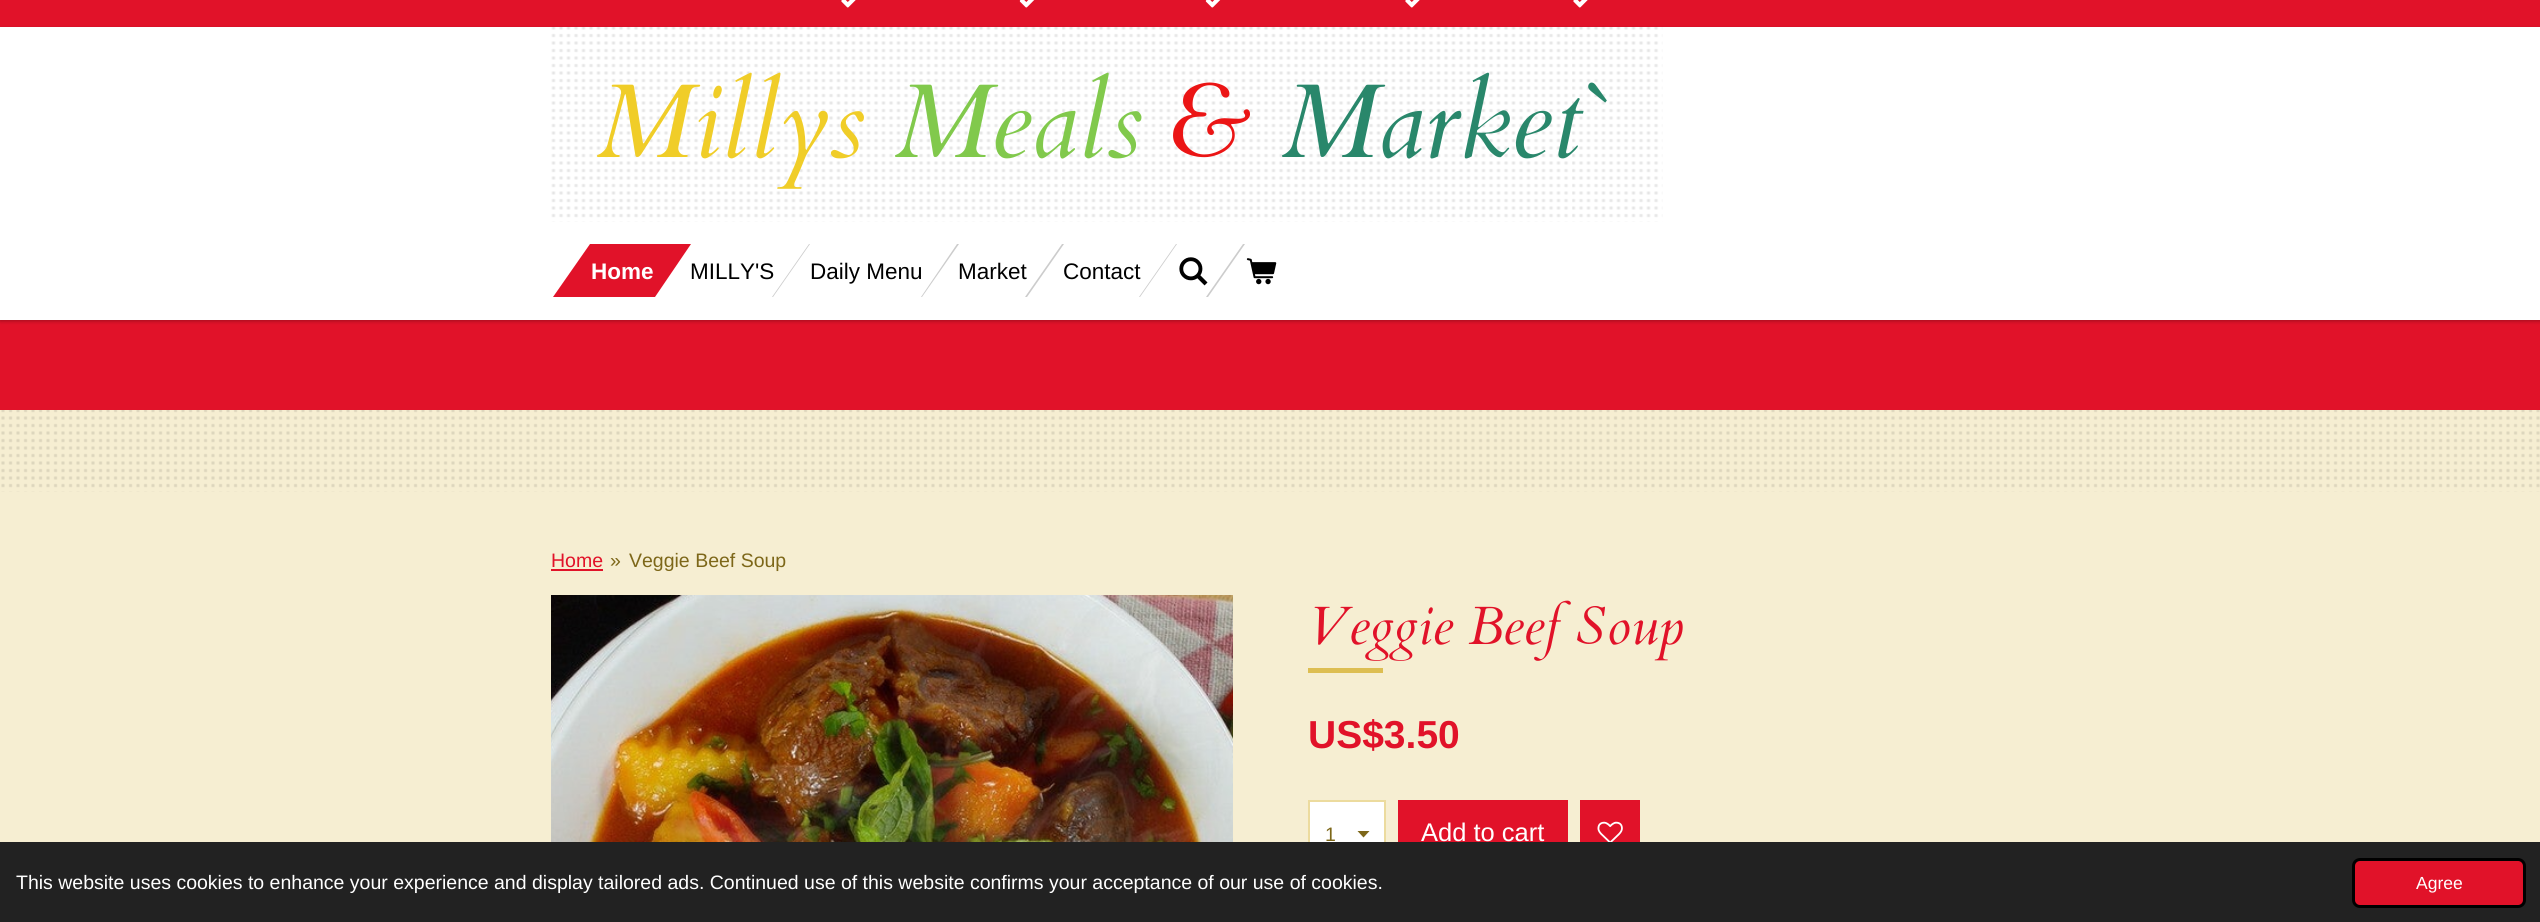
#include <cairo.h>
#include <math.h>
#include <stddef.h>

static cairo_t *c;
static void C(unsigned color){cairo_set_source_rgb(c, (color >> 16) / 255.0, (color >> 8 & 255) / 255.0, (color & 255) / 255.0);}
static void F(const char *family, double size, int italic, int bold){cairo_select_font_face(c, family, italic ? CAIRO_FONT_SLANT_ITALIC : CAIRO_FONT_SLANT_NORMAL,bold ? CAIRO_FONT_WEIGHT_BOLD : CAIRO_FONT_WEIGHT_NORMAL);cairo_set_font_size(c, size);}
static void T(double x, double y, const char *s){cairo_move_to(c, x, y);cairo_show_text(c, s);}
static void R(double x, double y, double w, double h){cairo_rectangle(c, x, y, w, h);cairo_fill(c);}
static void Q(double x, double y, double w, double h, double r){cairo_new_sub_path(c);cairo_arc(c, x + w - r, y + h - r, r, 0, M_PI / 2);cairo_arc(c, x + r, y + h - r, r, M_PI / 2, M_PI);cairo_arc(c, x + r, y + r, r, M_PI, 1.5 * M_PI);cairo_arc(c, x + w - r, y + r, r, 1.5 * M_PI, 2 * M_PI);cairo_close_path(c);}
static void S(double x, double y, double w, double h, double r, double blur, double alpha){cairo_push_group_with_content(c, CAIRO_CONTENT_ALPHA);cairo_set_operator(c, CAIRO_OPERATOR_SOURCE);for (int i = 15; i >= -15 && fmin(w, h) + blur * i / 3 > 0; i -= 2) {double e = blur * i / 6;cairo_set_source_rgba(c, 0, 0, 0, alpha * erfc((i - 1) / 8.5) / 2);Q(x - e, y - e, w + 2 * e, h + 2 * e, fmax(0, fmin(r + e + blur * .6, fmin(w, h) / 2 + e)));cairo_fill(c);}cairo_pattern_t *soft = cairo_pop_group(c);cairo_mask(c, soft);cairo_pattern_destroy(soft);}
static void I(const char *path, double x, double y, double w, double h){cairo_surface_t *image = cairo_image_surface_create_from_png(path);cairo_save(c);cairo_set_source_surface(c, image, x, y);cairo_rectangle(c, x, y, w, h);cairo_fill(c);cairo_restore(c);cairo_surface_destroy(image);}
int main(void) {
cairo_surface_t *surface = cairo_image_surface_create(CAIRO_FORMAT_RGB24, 2540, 922);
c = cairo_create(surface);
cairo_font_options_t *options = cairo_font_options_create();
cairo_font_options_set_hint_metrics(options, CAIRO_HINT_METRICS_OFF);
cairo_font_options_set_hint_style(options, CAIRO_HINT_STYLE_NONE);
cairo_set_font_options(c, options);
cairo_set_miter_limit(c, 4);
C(0xf6eed2);
cairo_paint(c);
C(0xe11229);
R(0,0,2540,27);
I("1.png",841,0,15,8);
I("2.png",1019,0,16,8);
I("2.png",1205,0,16,8);
I("1.png",1405,0,15,8);
I("1.png",1573,0,15,8);
R(0,320,2540,90);
C(0x000000);
S(0,29,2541,292,0,2,.3);
C(0xffffff);
R(0,27,2540,293);
I("3.png",551,26,1112,196);
F("Cardo",105,1,0);
C(0xf0cd28);
T(596,157,"Millys");
C(0x81c94c);
T(894,157,"Meals");
C(0xeb1515);
T(1172,157,"&");
C(0x29876b);
T(1281,157,"Market`");
C(0xe11229);
cairo_new_path(c);
cairo_move_to(c,590,244);
cairo_line_to(c,691,244);
cairo_line_to(c,655,297);
cairo_line_to(c,553,297);
cairo_close_path(c);
cairo_fill(c);
F("Liberation Sans",22.5,0,1);
C(0xffffff);
T(591,279,"Home");
C(0xcccccc);
cairo_new_path(c);
cairo_move_to(c,809,244);
cairo_line_to(c,810,244);
cairo_line_to(c,773,297);
cairo_line_to(c,772,297);
cairo_close_path(c);
cairo_fill(c);
F("Liberation Sans",22.5,0,0);
C(0x000000);
T(690,279,"MILLY'S");
T(810,279,"Daily Menu");
C(0xcccccc);
cairo_new_path(c);
cairo_move_to(c,957,244);
cairo_line_to(c,959,244);
cairo_line_to(c,922,297);
cairo_line_to(c,921,297);
cairo_close_path(c);
cairo_fill(c);
cairo_new_path(c);
cairo_move_to(c,1062,244);
cairo_line_to(c,1064,244);
cairo_line_to(c,1027,297);
cairo_line_to(c,1025,297);
cairo_close_path(c);
cairo_fill(c);
C(0x000000);
T(958,279,"Market");
C(0xcccccc);
cairo_new_path(c);
cairo_move_to(c,1176,244);
cairo_line_to(c,1177,244);
cairo_line_to(c,1140,297);
cairo_line_to(c,1139,297);
cairo_close_path(c);
cairo_fill(c);
C(0x000000);
T(1063,279,"Contact");
C(0xcccccc);
cairo_new_path(c);
cairo_move_to(c,1243,244);
cairo_line_to(c,1245,244);
cairo_line_to(c,1208,297);
cairo_line_to(c,1206,297);
cairo_close_path(c);
cairo_fill(c);
I("4.png",1179,257,29,29);
I("5.png",1246,258,31,27);
I("6.png",1,410,2539,82);
F("Liberation Sans",19.5,0,0);
C(0xe11229);
T(551,567,"Home");
R(551,569,52,2);
C(0x7d6719);
T(610,567,"»");
T(629,567,"Veggie Beef Soup");
I("7.png",551,595,682,247);
F("Cardo",54,1,0);
C(0xe11229);
T(1308,644,"Veggie Beef Soup");
C(0xddbe52);
R(1308,668,75,5);
F("Liberation Sans",39,0,1);
C(0xe11229);
T(1308,748,"US$3.50");
C(0xffffff);
R(1310,802,74,40);
C(0x7d6719);
cairo_new_path(c);
cairo_move_to(c,1363.5,837.5);
cairo_line_to(c,1357.5,831);
cairo_line_to(c,1369.5,831);
cairo_close_path(c);
cairo_fill(c);
cairo_rectangle(c,1309,801,76,65);
C(0xecdb9e);
cairo_stroke(c);
F("Liberation Sans",19.5,0,0);
C(0x7d6719);
T(1325,841,"1");
C(0xe11229);
R(1398,800,170,42);
F("Liberation Sans",25.5,0,0);
C(0xffffff);
T(1421,841,"Add to cart");
C(0xe11229);
R(1580,800,60,42);
I("8.png",1597,821,26,21);
C(0x222222);
R(0,842,2540,80);
F("Liberation Sans",19.5,0,0);
C(0xffffff);
T(16,889,"This website uses cookies to enhance your experience and display tailored ads. Continued use of this website confirms your acceptance of our use of cookies.");
C(0xe11229);
Q(2353.5,859.5,171,47,6.5);
cairo_fill_preserve(c);
C(0x000000);
cairo_set_line_width(c,3);
cairo_stroke(c);
F("Liberation Sans",17.5,0,0);
C(0xffffff);
T(2416,889,"Agree");
cairo_surface_write_to_png(surface, "o.png");
cairo_font_options_destroy(options);
cairo_destroy(c);
cairo_surface_destroy(surface);
return 0;
}
